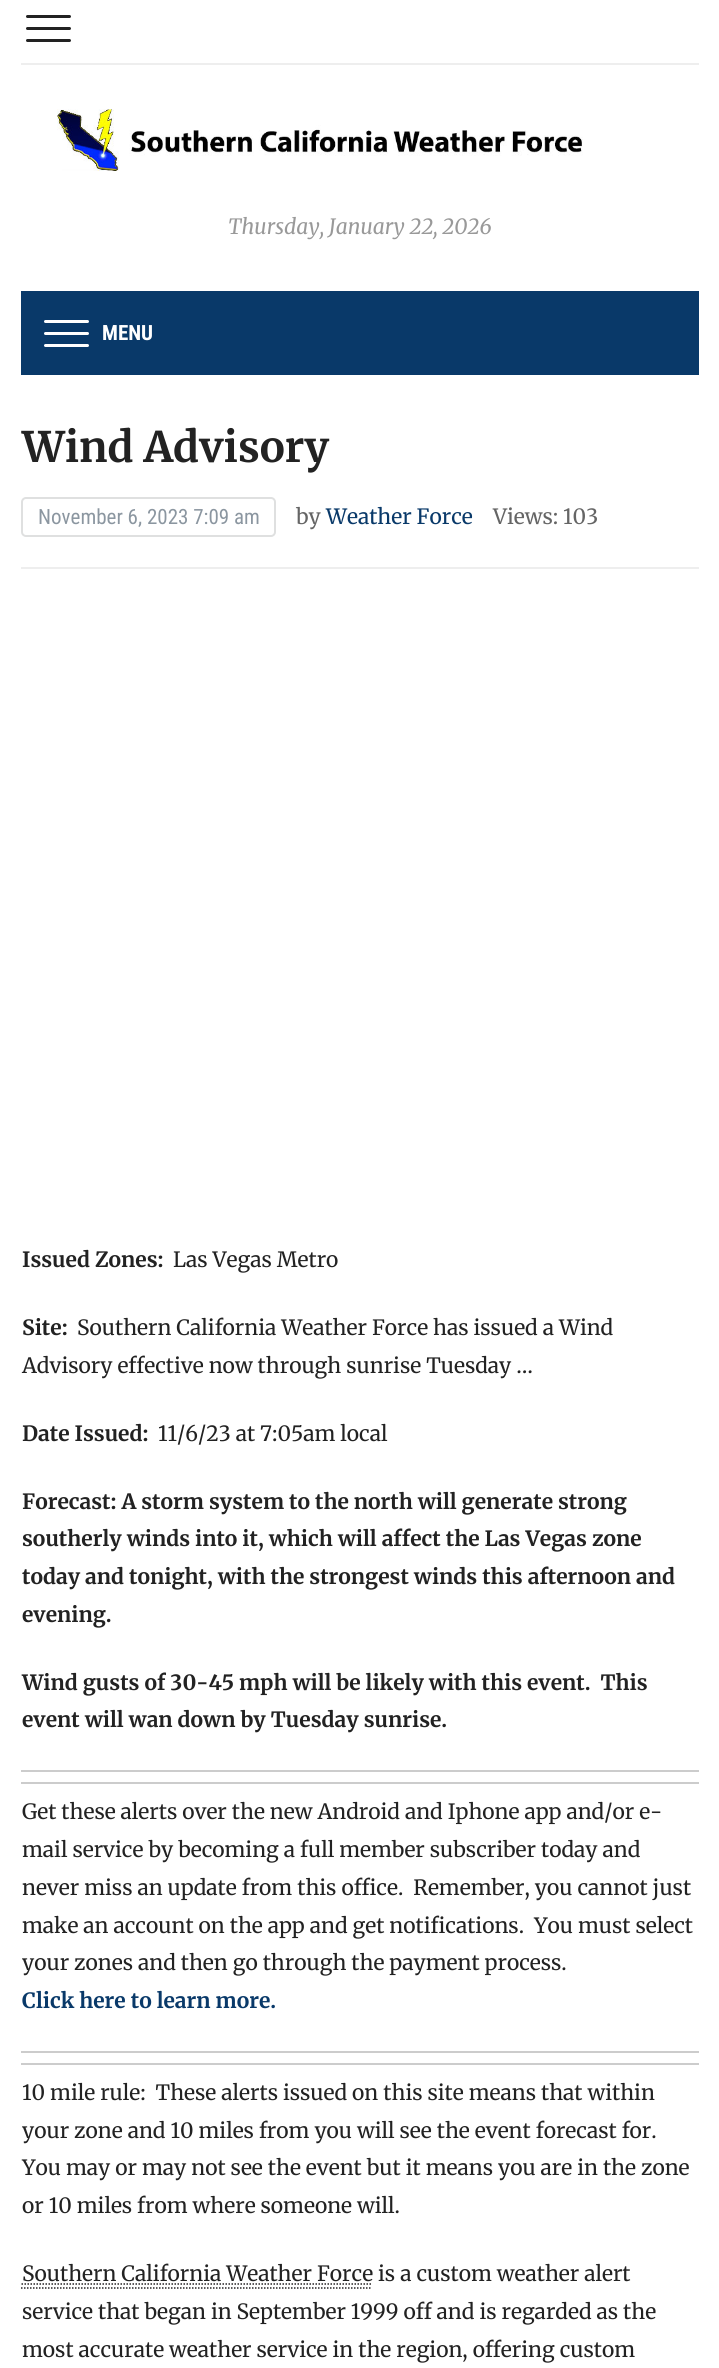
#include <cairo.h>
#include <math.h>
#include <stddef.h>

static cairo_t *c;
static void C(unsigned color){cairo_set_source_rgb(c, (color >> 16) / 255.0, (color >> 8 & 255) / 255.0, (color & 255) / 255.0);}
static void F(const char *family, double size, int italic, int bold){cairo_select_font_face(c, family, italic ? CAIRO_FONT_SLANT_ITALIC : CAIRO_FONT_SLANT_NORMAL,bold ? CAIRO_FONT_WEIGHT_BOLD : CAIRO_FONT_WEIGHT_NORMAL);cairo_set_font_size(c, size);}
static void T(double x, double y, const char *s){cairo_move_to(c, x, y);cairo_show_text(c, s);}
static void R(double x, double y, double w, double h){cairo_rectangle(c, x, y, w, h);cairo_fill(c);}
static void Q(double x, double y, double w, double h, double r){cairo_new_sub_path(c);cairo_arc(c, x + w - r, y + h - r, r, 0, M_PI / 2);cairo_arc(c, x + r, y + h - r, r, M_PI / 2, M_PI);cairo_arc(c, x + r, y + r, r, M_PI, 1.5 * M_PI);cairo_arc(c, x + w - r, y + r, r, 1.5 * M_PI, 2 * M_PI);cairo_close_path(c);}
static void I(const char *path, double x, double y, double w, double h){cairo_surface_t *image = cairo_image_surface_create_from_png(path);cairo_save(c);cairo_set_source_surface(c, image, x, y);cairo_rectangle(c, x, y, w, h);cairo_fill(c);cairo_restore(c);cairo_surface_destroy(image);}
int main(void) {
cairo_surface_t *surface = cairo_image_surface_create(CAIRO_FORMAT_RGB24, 719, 2368);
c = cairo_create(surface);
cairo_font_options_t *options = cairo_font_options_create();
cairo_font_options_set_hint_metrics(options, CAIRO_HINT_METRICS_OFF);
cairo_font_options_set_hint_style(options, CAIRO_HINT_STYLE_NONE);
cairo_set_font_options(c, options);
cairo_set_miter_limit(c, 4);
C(0xffffff);
cairo_paint(c);
C(0xeeeeee);
R(21,63,678,2);
C(0x222222);
Q(26,15,45,3,1.5);
cairo_fill(c);
Q(26,27,45,3,1.5);
cairo_fill(c);
Q(26,39,45,3,1.5);
cairo_fill(c);
I("1.png",57,109,526,62);
F("Merriweather",21,1,0);
C(0x999999);
T(228,234,"Thursday, January 22, 2026");
C(0x093969);
R(21,291,678,84);
C(0xffffff);
Q(44,320,45,3,1.5);
cairo_fill(c);
Q(44,332,45,3,1.5);
cairo_fill(c);
Q(44,344,45,3,1.5);
cairo_fill(c);
F("Roboto Condensed",21,0,1);
T(102,340,"MENU");
F("Merriweather",42,0,1);
C(0x222222);
T(22,462,"Wind Advisory");
C(0xeeeeee);
R(21,567,678,2);
Q(22,498,253,38,4);
C(0xdfe0e0);
cairo_stroke(c);
F("Roboto Condensed",21,0,0);
C(0x8b96a0);
T(38,524,"November 6, 2023 7:09 am");
F("Merriweather",21,0,0);
C(0x656565);
T(296,524,"by");
C(0x093969);
T(326,524,"Weather Force");
C(0x656565);
T(493,524,"Views: 103");
F("Merriweather",21,0,1);
C(0x222222);
T(22,1267,"Issued Zones:");
F("Merriweather",21,0,0);
T(173,1267,"Las Vegas Metro");
F("Merriweather",21,0,1);
T(22,1335,"Site:");
F("Merriweather",21,0,0);
T(77,1335,"Southern California Weather Force has issued a Wind");
T(22,1373,"Advisory effective now through sunrise Tuesday …");
F("Merriweather",21,0,1);
T(22,1441,"Date Issued:");
F("Merriweather",21,0,0);
T(158,1441,"11/6/23 at 7:05am local");
F("Merriweather",21,0,1);
T(22,1509,"Forecast: A storm system to the north will generate strong");
T(22,1546,"southerly winds into it, which will affect the Las Vegas zone");
T(22,1584,"today and tonight, with the strongest winds this afternoon and");
T(22,1622,"evening.");
T(22,1690,"Wind gusts of 30-45 mph will be likely with this event.  This");
T(22,1727,"event will wan down by Tuesday sunrise.");
C(0xcccccc);
R(21,1770,678,2);
R(21,1782,678,2);
F("Merriweather",21,0,0);
C(0x222222);
T(22,1819,"Get these alerts over the new Android and Iphone app and/or e-");
T(22,1857,"mail service by becoming a full member subscriber today and");
T(22,1895,"never miss an update from this office.  Remember, you cannot just");
T(22,1933,"make an account on the app and get notifications.  You must select");
T(22,1970,"your zones and then go through the payment process.");
F("Merriweather",21,0,1);
C(0x093969);
T(22,2008,"Click here to learn more.");
C(0xcccccc);
R(21,2051,678,2);
R(21,2063,678,2);
F("Merriweather",21,0,0);
C(0x222222);
T(22,2100,"10 mile rule:  These alerts issued on this site means that within");
T(22,2138,"your zone and 10 miles from you will see the event forecast for.");
T(22,2175,"You may or may not see the event but it means you are in the zone");
T(22,2213,"or 10 miles from where someone will.");
T(22,2281,"Southern California Weather Force is a custom weather alert");
cairo_new_path(c);
cairo_move_to(c,21,2288);
cairo_line_to(c,372,2288);
C(0x252324);
cairo_set_line_width(c,1.5);
cairo_set_dash(c,(double[]){1.5,1.5},2,0);
cairo_stroke(c);
cairo_new_path(c);
cairo_move_to(c,21.5,2284);
cairo_line_to(c,372.5,2284);
cairo_stroke(c);
C(0x222222);
T(22,2319,"service that began in September 1999 off and is regarded as the");
T(22,2357,"most accurate weather service in the region, offering custom");
cairo_surface_write_to_png(surface, "o.png");
cairo_font_options_destroy(options);
cairo_destroy(c);
cairo_surface_destroy(surface);
return 0;
}
